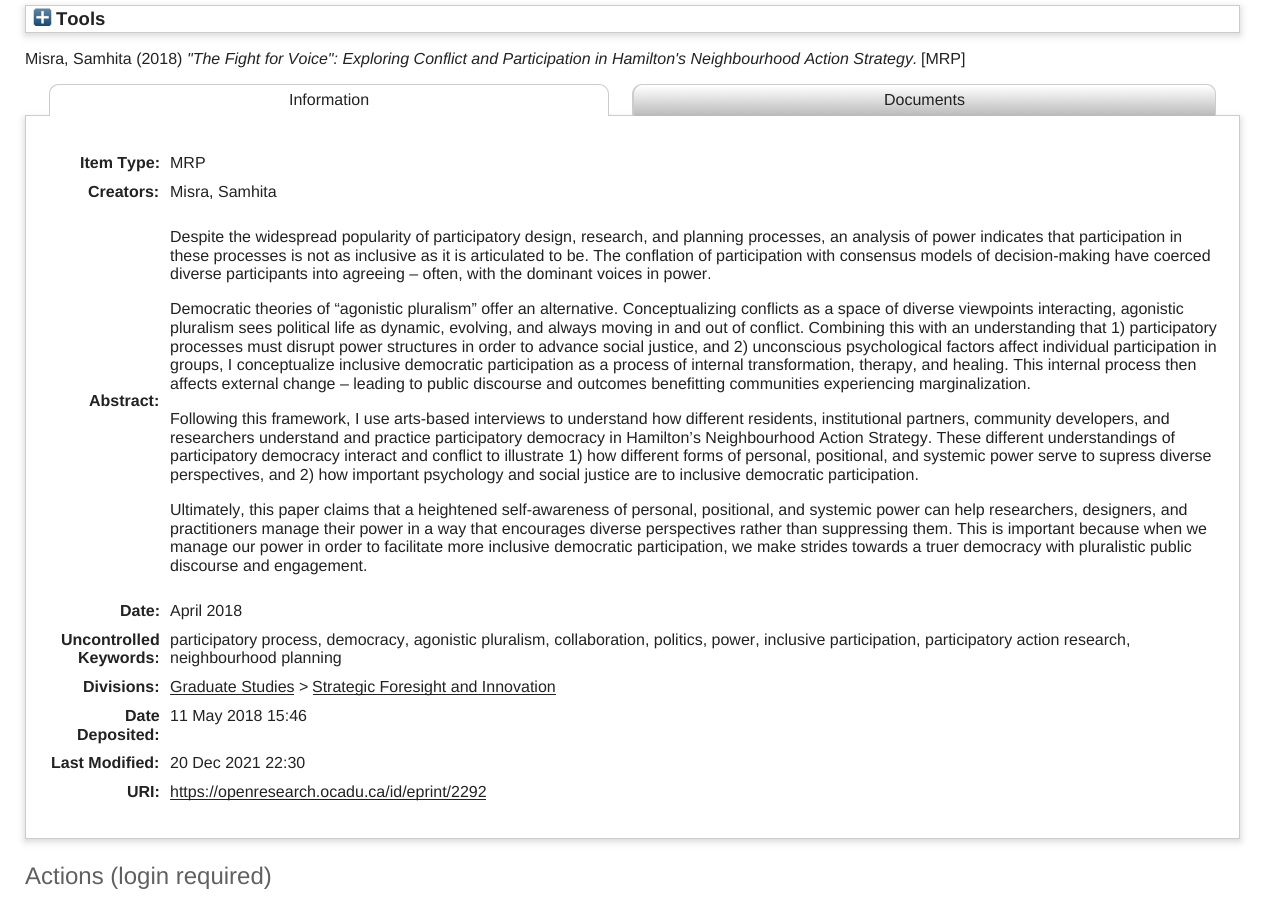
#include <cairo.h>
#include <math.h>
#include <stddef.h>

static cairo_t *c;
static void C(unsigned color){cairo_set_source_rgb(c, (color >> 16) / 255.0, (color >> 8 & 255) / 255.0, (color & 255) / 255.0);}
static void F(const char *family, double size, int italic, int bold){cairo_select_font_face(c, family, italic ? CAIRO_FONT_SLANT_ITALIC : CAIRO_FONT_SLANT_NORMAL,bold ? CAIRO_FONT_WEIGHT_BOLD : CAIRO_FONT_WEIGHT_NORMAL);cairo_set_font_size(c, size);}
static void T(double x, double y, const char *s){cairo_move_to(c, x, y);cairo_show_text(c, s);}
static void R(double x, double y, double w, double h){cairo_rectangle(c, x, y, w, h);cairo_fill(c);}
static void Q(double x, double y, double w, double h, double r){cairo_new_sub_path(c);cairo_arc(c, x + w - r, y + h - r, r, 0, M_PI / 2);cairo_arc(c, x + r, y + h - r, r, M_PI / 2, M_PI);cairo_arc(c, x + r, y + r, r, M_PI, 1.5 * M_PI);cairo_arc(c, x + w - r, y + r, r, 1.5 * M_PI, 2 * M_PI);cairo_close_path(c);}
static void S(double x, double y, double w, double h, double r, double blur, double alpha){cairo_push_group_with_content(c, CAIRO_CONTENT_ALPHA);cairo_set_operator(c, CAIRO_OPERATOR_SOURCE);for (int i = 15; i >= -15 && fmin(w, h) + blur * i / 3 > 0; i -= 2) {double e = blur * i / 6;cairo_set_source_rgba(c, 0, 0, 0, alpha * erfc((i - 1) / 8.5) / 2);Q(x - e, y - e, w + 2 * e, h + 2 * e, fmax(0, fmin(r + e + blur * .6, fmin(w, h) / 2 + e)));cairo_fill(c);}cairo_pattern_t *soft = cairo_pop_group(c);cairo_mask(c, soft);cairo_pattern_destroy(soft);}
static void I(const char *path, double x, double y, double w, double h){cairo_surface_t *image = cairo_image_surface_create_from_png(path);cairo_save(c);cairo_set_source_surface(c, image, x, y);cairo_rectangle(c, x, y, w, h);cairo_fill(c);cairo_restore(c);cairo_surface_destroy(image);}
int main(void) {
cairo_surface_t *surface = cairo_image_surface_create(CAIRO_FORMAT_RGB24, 1264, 912);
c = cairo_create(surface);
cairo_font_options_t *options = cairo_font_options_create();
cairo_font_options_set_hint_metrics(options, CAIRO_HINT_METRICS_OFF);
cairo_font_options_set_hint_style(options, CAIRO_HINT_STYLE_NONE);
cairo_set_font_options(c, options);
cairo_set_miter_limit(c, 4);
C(0xffffff);
cairo_paint(c);
C(0x646464);
S(25,8,1215,27,0,4,.3);
C(0xffffff);
cairo_rectangle(c,25.5,5.5,1214,27);
cairo_fill_preserve(c);
C(0xcccccc);
cairo_set_line_width(c,1);
cairo_stroke(c);
I("1.png",33,8,19,18);
F("Liberation Sans",18.5,0,1);
C(0x222222);
T(56,25,"Tools");
F("Liberation Sans",16,0,0);
T(25,64,"Misra, Samhita (2018)");
F("Liberation Sans",16,1,0);
T(187,64,"\"The Fight for Voice\": Exploring Conflict and Participation in Hamilton's Neighbourhood Action Strategy.");
F("Liberation Sans",16,0,0);
T(921,64,"[MRP]");
C(0x646464);
S(25,119,1215,722,0,4,.3);
C(0xcccccc);
R(25,115,608,1);
C(0xffffff);
cairo_new_path(c);
cairo_move_to(c,59,85);
cairo_line_to(c,599,85);
cairo_curve_to(c,604,85,608,89,608,94);
cairo_line_to(c,608,116);
cairo_line_to(c,50,116);
cairo_line_to(c,50,94);
cairo_curve_to(c,50,89,54,85,59,85);
cairo_close_path(c);
cairo_fill(c);
C(0xcccccc);
cairo_set_fill_rule(c,CAIRO_FILL_RULE_EVEN_ODD);
cairo_new_path(c);
cairo_move_to(c,59,84);
cairo_line_to(c,599,84);
cairo_curve_to(c,604,84,609,88,609,94);
cairo_line_to(c,609,116);
cairo_line_to(c,49,116);
cairo_line_to(c,49,94);
cairo_curve_to(c,49,88,53,84,59,84);
cairo_close_path(c);
cairo_move_to(c,59,85);
cairo_line_to(c,599,85);
cairo_curve_to(c,604,85,608,89,608,94);
cairo_line_to(c,608,116);
cairo_line_to(c,50,116);
cairo_line_to(c,50,94);
cairo_curve_to(c,50,89,54,85,59,85);
cairo_close_path(c);
cairo_fill(c);
C(0x222222);
T(289,105,"Information");
C(0xcccccc);
R(1216,115,24,1);
C(0xbbbbbb);
cairo_new_path(c);
cairo_move_to(c,643,85);
cairo_line_to(c,1206,85);
cairo_curve_to(c,1211,85,1215,89,1215,94);
cairo_line_to(c,1215,116);
cairo_line_to(c,634,116);
cairo_line_to(c,634,94);
cairo_curve_to(c,634,89,638,85,643,85);
cairo_close_path(c);
cairo_fill(c);
I("2.png",634,85,581,29);
C(0xcccccc);
cairo_new_path(c);
cairo_move_to(c,642,84);
cairo_line_to(c,1206,84);
cairo_curve_to(c,1212,84,1216,88,1216,94);
cairo_line_to(c,1216,116);
cairo_line_to(c,632,116);
cairo_line_to(c,632,94);
cairo_curve_to(c,632,88,637,84,642,84);
cairo_close_path(c);
cairo_move_to(c,642,85);
cairo_line_to(c,1206,85);
cairo_curve_to(c,1211,85,1215,89,1215,94);
cairo_line_to(c,1215,116);
cairo_line_to(c,634,116);
cairo_line_to(c,634,94);
cairo_curve_to(c,634,89,638,85,642,85);
cairo_close_path(c);
cairo_fill(c);
C(0x222222);
T(884,105,"Documents");
C(0xffffff);
R(26,116,1213,722);
C(0xcccccc);
R(1239,116,1,723);
R(25,838,1215,1);
R(25,116,1,723);
F("Liberation Sans",16,0,1);
C(0x222222);
T(80,168,"Item Type:");
F("Liberation Sans",16,0,0);
T(170,168,"MRP");
F("Liberation Sans",16,0,1);
T(88,197,"Creators:");
F("Liberation Sans",16,0,0);
T(170,197,"Misra, Samhita");
F("Liberation Sans",16,0,1);
T(89,406,"Abstract:");
F("Liberation Sans",16,0,0);
T(170,242,"Despite the widespread popularity of participatory design, research, and planning processes, an analysis of power indicates that participation in");
T(170,261,"these processes is not as inclusive as it is articulated to be. The conflation of participation with consensus models of decision-making have coerced");
T(170,279,"diverse participants into agreeing – often, with the dominant voices in power.");
T(170,314,"Democratic theories of “agonistic pluralism” offer an alternative. Conceptualizing conflicts as a space of diverse viewpoints interacting, agonistic");
T(170,333,"pluralism sees political life as dynamic, evolving, and always moving in and out of conflict. Combining this with an understanding that 1) participatory");
T(170,352,"processes must disrupt power structures in order to advance social justice, and 2) unconscious psychological factors affect individual participation in");
T(170,370,"groups, I conceptualize inclusive democratic participation as a process of internal transformation, therapy, and healing. This internal process then");
T(170,389,"affects external change – leading to public discourse and outcomes benefitting communities experiencing marginalization.");
T(170,424,"Following this framework, I use arts-based interviews to understand how different residents, institutional partners, community developers, and");
T(170,443,"researchers understand and practice participatory democracy in Hamilton’s Neighbourhood Action Strategy. These different understandings of");
T(170,461,"participatory democracy interact and conflict to illustrate 1) how different forms of personal, positional, and systemic power serve to supress diverse");
T(170,480,"perspectives, and 2) how important psychology and social justice are to inclusive democratic participation.");
T(170,515,"Ultimately, this paper claims that a heightened self-awareness of personal, positional, and systemic power can help researchers, designers, and");
T(170,534,"practitioners manage their power in a way that encourages diverse perspectives rather than suppressing them. This is important because when we");
T(170,552,"manage our power in order to facilitate more inclusive democratic participation, we make strides towards a truer democracy with pluralistic public");
T(170,571,"discourse and engagement.");
F("Liberation Sans",16,0,1);
T(120,616,"Date:");
F("Liberation Sans",16,0,0);
T(170,616,"April 2018");
F("Liberation Sans",16,0,1);
T(61,645,"Uncontrolled");
T(78,663,"Keywords:");
F("Liberation Sans",16,0,0);
T(170,645,"participatory process, democracy, agonistic pluralism, collaboration, politics, power, inclusive participation, participatory action research,");
T(170,663,"neighbourhood planning");
F("Liberation Sans",16,0,1);
T(83,692,"Divisions:");
F("Liberation Sans",16,0,0);
T(170,692,"Graduate Studies >");
R(170,694,124,1);
R(313,694,243,1);
T(312,692,"Strategic Foresight and Innovation");
F("Liberation Sans",16,0,1);
T(125,721,"Date");
T(77,740,"Deposited:");
F("Liberation Sans",16,0,0);
T(170,721,"11 May 2018 15:46");
F("Liberation Sans",16,0,1);
T(51,768,"Last Modified:");
F("Liberation Sans",16,0,0);
T(170,768,"20 Dec 2021 22:30");
F("Liberation Sans",16,0,1);
T(127,797,"URI:");
R(170,799,316,1);
F("Liberation Sans",16,0,0);
T(170,797,"https://openresearch.ocadu.ca/id/eprint/2292");
F("Liberation Sans",24,0,0);
C(0x606060);
T(25,884,"Actions (login required)");
cairo_surface_write_to_png(surface, "o.png");
cairo_font_options_destroy(options);
cairo_destroy(c);
cairo_surface_destroy(surface);
return 0;
}
